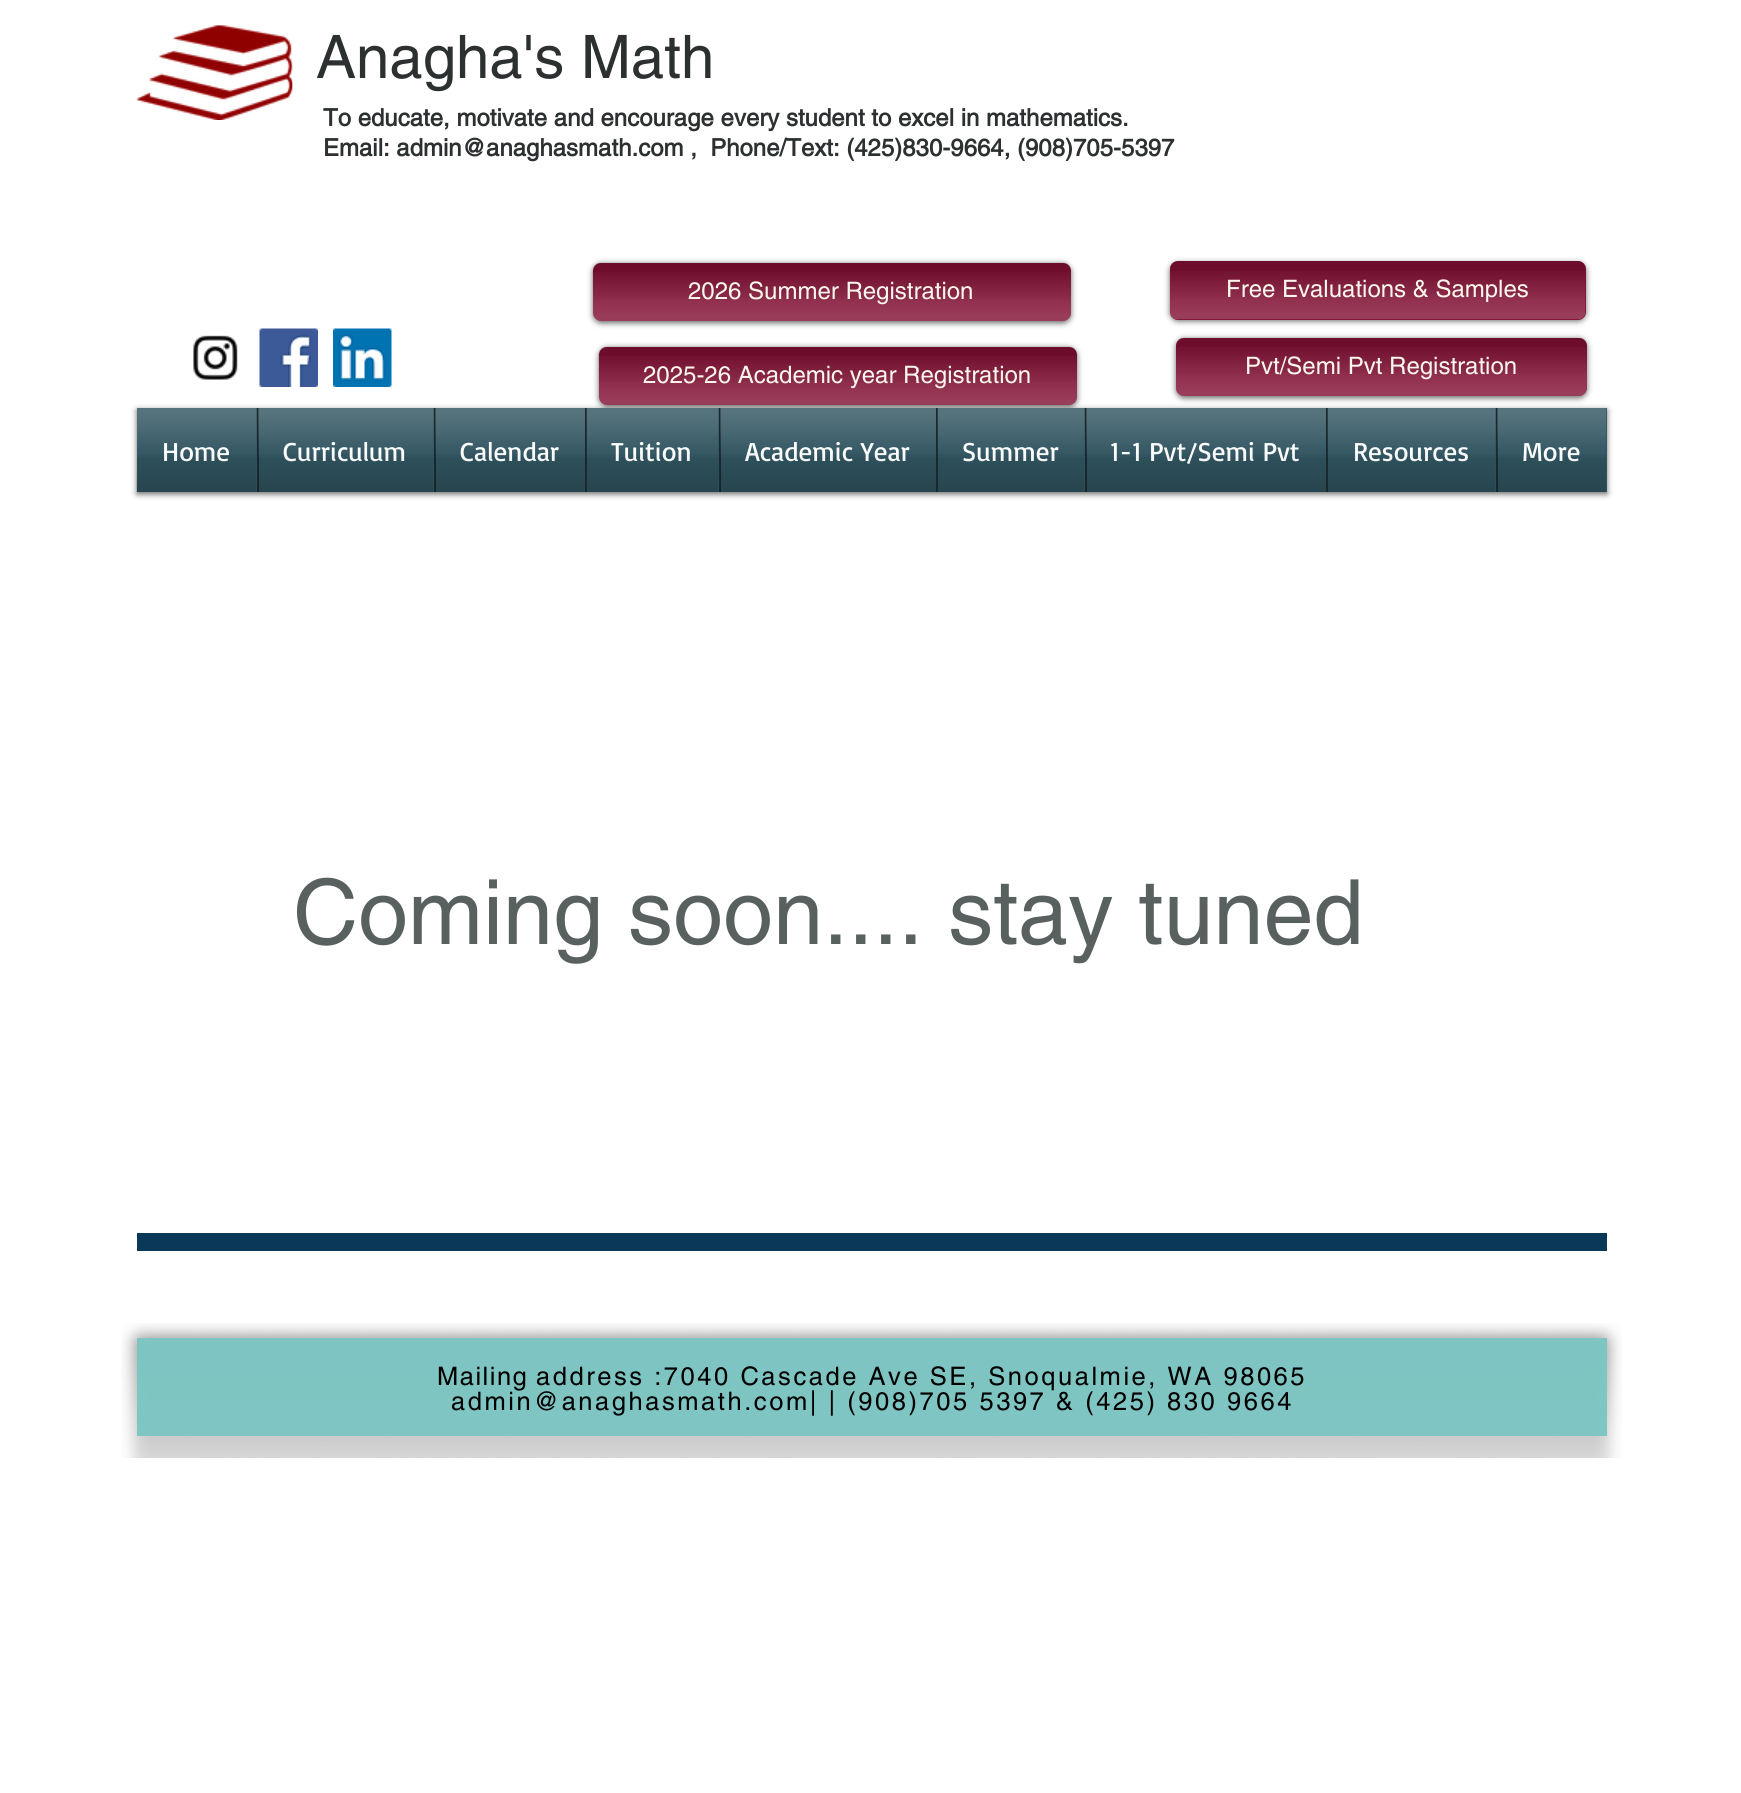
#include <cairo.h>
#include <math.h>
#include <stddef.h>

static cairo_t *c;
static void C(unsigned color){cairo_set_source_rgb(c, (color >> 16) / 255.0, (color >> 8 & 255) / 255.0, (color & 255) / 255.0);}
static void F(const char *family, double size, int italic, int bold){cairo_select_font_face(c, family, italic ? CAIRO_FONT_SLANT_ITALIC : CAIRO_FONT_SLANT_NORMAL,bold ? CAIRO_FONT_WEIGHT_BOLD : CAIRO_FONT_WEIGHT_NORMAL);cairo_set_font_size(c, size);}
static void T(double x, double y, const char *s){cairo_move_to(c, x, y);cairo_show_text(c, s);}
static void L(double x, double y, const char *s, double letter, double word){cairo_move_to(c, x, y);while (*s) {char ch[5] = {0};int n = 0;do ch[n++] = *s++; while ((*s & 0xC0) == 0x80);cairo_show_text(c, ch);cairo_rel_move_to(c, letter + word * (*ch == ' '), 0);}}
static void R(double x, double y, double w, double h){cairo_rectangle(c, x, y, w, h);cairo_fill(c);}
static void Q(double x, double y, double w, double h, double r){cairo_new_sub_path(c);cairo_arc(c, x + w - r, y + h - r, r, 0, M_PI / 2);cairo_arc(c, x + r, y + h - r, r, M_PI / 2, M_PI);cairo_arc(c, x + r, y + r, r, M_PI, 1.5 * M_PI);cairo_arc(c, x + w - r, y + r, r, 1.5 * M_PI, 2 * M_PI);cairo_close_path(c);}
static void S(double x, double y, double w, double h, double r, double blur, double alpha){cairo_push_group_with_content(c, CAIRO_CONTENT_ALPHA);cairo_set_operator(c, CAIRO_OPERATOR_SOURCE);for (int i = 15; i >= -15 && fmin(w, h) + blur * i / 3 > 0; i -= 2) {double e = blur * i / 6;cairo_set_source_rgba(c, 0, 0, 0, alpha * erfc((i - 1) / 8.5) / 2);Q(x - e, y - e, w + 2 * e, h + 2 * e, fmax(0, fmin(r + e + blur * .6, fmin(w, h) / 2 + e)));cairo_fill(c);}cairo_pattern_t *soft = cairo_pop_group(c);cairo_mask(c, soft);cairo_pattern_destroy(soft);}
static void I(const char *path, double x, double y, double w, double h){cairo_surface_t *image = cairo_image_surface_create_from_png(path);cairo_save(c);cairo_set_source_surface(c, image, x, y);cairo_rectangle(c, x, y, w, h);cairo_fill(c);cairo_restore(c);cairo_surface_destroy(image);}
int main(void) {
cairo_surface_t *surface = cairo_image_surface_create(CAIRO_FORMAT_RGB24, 1741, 1793);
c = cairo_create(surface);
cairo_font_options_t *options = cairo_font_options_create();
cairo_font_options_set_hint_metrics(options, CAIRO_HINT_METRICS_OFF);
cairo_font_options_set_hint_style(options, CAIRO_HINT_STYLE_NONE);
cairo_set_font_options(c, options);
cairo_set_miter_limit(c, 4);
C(0xffffff);
cairo_paint(c);
I("1.png",136,25,157,95);
F("helvetica",60,0,0);
C(0x2c3030);
T(316,78,"Anagha's Math");
F("helvetica",24,0,1);
T(323,126,"To educate, motivate and encourage every student to excel in mathematics.");
T(323,156,"Email: admin@anaghasmath.com ,  Phone/Text: (425)830-9664, (908)705-5397");
C(0x000000);
S(593,264,478,59,8,3,.6);
C(0x800f33);
Q(593,263,478,58,8);
cairo_fill(c);
I("2.png",592,262,479,37);
I("3.png",593,272,478,49);
F("helvetica",24,0,0);
C(0xfaf6eb);
T(688,299,"2026 Summer Registration");
C(0x000000);
S(1170,263,416,58,8,3,.6);
C(0x800f33);
Q(1170,261,416,59,8);
cairo_fill(c);
I("4.png",1170,261,416,37);
I("5.png",1170,271,416,49);
C(0xfaf6eb);
T(1226,297,"Free Evaluations & Samples");
I("6.png",193,335,45,45);
I("7.png",259,328,59,59);
I("8.png",333,328,59,59);
C(0x000000);
S(599,348,478,59,8,3,.6);
C(0x800f33);
Q(599,347,478,58,8);
cairo_fill(c);
I("2.png",598,346,479,37);
I("3.png",599,356,478,49);
C(0xfaf6eb);
T(643,383,"2025-26 Academic year Registration");
C(0x000000);
S(1176,339,411,59,8,3,.6);
C(0x800f33);
Q(1176,338,411,58,8);
cairo_fill(c);
I("9.png",1176,337,411,37);
I("10.png",1176,347,411,49);
C(0xfaf6eb);
T(1245,374,"Pvt/Semi Pvt Registration");
C(0x000000);
S(137,410,1470,84,0,3,.6);
I("11.png",136,472,1,20);
C(0x2f535f);
R(137,408,120,84);
F("Basic",27,0,0);
C(0xfeffff);
T(162,461,"Home");
I("12.png",137,408,120,49);
I("13.png",136,454,121,38);
C(0x2f535f);
R(259,408,175,84);
C(0x182a30);
R(257,408,2,84);
C(0xfeffff);
T(283,461,"Curriculum");
I("14.png",258,408,176,49);
I("15.png",258,454,176,38);
C(0x2f535f);
R(436,408,149,84);
C(0x182a30);
R(434,408,2,84);
C(0xfeffff);
T(460,461,"Calendar");
I("16.png",435,408,150,49);
I("17.png",435,454,150,38);
C(0x2f535f);
R(587,408,132,84);
C(0x182a30);
R(585,408,2,84);
C(0xfeffff);
T(611,461,"Tuition");
I("18.png",586,408,133,49);
I("19.png",587,454,132,38);
C(0x2f535f);
R(721,408,215,84);
C(0x182a30);
R(719,408,2,84);
C(0xfeffff);
T(745,461,"Academic Year");
I("20.png",720,408,216,49);
I("21.png",720,454,216,38);
C(0x2f535f);
R(938,408,147,84);
C(0x182a30);
R(936,408,2,84);
C(0xfeffff);
T(962,461,"Summer");
I("22.png",937,408,148,49);
I("23.png",938,454,147,38);
C(0x2f535f);
R(1087,408,239,84);
C(0x182a30);
R(1085,408,2,84);
C(0xfeffff);
T(1110,461,"1-1 Pvt/Semi Pvt");
I("24.png",1086,408,240,49);
I("25.png",1086,454,240,38);
C(0x2f535f);
R(1328,408,168,84);
C(0x182a30);
R(1326,408,2,84);
C(0xfeffff);
T(1353,461,"Resources");
I("26.png",1327,408,169,49);
I("27.png",1328,454,168,38);
C(0x2f535f);
R(1498,408,109,84);
C(0x182a30);
R(1496,408,2,84);
C(0xfeffff);
T(1522,461,"More");
I("28.png",1497,408,110,49);
I("29.png",1497,454,109,38);
F("helvetica",90,0,0);
C(0x596160);
T(293,944,"Coming soon.... stay tuned");
C(0x0a3859);
R(137,1233,1470,18);
C(0x182a30);
R(137,1338,1470,98);
I("30.png",121,1323,68,135);
I("31.png",189,1323,1365,135);
I("32.png",1554,1323,68,135);
cairo_set_source_rgba(c,0.557,0.871,0.855,0.87);
R(137,1338,1470,98);
F("helvetica",25.5,0,0);
C(0x000000);
L(437,1385,"Mailing",1.5,0);
L(536,1385,"address :7040 Cascade Ave SE, Snoqualmie, WA 98065",2.55,0);
L(451,1410,"admin@anaghasmath.com| | (908)705 5397 & (425) 830 9664",2.55,0);
cairo_surface_write_to_png(surface, "o.png");
cairo_font_options_destroy(options);
cairo_destroy(c);
cairo_surface_destroy(surface);
return 0;
}
